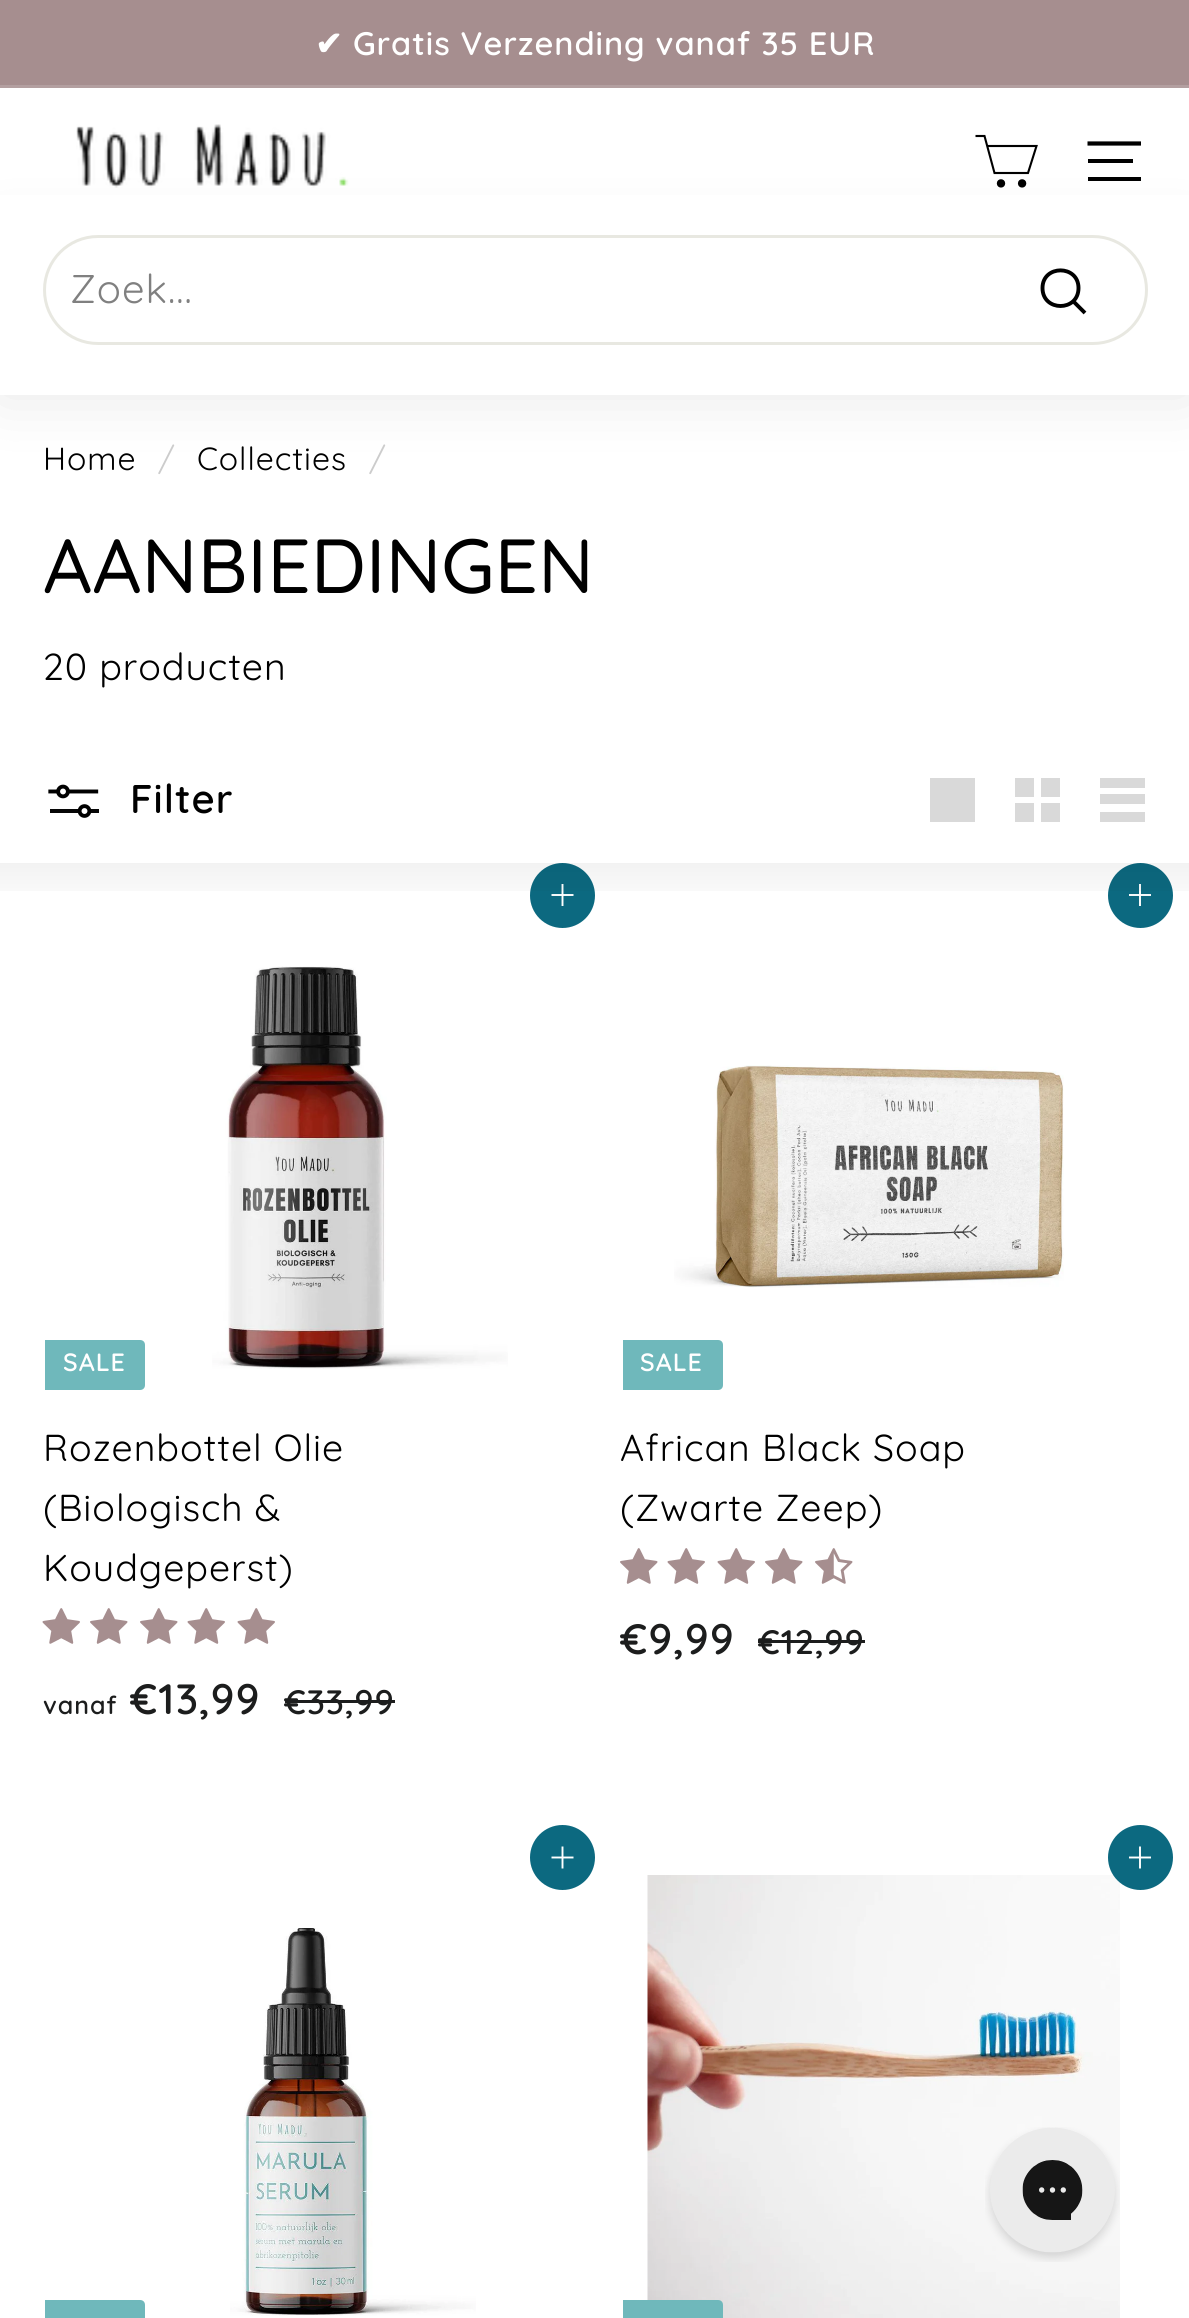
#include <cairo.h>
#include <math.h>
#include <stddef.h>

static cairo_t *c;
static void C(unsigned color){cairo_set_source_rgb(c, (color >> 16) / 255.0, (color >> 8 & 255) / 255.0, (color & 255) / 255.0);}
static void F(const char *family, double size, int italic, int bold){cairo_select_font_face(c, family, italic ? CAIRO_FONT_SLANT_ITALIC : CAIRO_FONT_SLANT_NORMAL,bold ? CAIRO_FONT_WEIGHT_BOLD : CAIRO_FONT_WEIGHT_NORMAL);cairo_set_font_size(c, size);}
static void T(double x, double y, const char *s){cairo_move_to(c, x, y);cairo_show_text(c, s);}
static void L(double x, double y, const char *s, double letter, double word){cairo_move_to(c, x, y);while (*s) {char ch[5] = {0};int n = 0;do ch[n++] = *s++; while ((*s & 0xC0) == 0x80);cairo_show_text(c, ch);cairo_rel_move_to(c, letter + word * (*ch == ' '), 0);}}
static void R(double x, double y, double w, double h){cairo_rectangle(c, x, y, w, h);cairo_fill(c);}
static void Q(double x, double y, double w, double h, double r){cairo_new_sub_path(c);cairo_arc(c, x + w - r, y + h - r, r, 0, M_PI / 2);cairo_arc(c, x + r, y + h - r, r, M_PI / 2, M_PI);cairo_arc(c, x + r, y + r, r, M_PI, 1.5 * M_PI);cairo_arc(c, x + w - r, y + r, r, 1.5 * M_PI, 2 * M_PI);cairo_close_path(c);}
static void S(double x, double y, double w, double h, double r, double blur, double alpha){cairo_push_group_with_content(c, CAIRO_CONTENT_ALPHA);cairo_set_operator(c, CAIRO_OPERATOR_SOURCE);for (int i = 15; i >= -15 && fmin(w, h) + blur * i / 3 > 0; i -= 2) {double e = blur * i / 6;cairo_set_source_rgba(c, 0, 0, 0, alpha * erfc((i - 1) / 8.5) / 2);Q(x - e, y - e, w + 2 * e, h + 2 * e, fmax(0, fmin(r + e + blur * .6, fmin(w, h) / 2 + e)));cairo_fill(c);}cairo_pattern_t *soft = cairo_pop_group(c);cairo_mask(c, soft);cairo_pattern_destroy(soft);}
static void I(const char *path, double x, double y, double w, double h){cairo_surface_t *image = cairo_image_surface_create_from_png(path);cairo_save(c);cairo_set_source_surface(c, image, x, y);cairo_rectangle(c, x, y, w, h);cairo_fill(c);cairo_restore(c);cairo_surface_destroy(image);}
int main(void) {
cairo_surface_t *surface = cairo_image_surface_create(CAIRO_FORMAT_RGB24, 1189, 2318);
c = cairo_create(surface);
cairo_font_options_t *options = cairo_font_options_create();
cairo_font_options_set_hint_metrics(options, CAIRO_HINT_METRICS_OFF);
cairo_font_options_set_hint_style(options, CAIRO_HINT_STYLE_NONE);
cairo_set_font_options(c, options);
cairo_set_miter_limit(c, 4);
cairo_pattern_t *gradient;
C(0xffffff);
cairo_paint(c);
C(0xa68e8f);
R(0,0,1189,85);
F("DejaVu Sans",32.5,0,1);
C(0xffffff);
L(315,55,"✔",.95,0);
F("Quicksand SemiBold",32.5,0,0);
L(353,55,"Gratis Verzending vanaf 35 EUR",.95,0);
C(0xb39fa0);
R(0,85,1189,3);
C(0x000000);
S(0,235,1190,160,0,31,.1);
I("1.png",76,124,273,64);
cairo_new_path(c);
cairo_move_to(c,987.5,146);
cairo_line_to(c,1036.5,146);
cairo_line_to(c,1028,173);
cairo_line_to(c,994.5,173);
cairo_line_to(c,984.5,136);
cairo_line_to(c,975.5,136);
C(0x000000);
cairo_set_line_width(c,2.1);
cairo_stroke(c);
cairo_arc(c,1001,183.4,2.1,0,2 * M_PI);
cairo_set_line_width(c,4.2);
cairo_stroke(c);
cairo_arc(c,1022.1,183.4,2.1,0,2 * M_PI);
cairo_stroke(c);
cairo_new_path(c);
cairo_move_to(c,1087.5,143.5);
cairo_line_to(c,1141,143.5);
cairo_stroke(c);
R(1088,159,45,4);
R(1088,177,53,4);
C(0xffffff);
R(0,195,1189,200);
Q(44.5,236.5,1102,107,53.5);
C(0xe8e8e1);
cairo_set_line_width(c,3);
cairo_stroke(c);
F("Quicksand",40,0,0);
C(0x808080);
L(70,303,"Zoek...",1,0);
cairo_new_path(c);
cairo_move_to(c,1078.5,288);
cairo_curve_to(c,1078.5,312,1042.5,312,1042.5,288);
cairo_curve_to(c,1042.5,264.5,1078.5,264.5,1078.5,288);
cairo_close_path(c);
cairo_move_to(c,1085,313);
cairo_line_to(c,1073.5,301.5);
C(0x000000);
cairo_set_line_width(c,3.9);
cairo_stroke(c);
F("Quicksand",32,0,0);
L(43,470,"Home",.95,0);
C(0xcccccc);
L(158,470,"/",.95,0);
C(0x000000);
L(197,470,"Collecties",.95,0);
C(0xcccccc);
L(369,470,"/",.95,0);
F("Quicksand Medium",76.5,0,0);
C(0x000000);
T(43,593,"AANBIEDINGEN");
F("Quicksand",37.5,0,0);
L(43,680,"20 producten",.95,0);
I("2.png",48,784,51,34);
F("Quicksand SemiBold",40,0,0);
L(130,813,"Filter",1,0);
C(0xd9d9d9);
R(930,778,45,44);
cairo_new_path(c);
cairo_move_to(c,1015,778);
cairo_line_to(c,1034,778);
cairo_line_to(c,1034,797);
cairo_line_to(c,1015,797);
cairo_close_path(c);
cairo_move_to(c,1041,778);
cairo_line_to(c,1060,778);
cairo_line_to(c,1060,797);
cairo_line_to(c,1041,797);
cairo_close_path(c);
cairo_move_to(c,1015,803);
cairo_line_to(c,1034,803);
cairo_line_to(c,1034,822);
cairo_line_to(c,1015,822);
cairo_close_path(c);
cairo_move_to(c,1041,803);
cairo_line_to(c,1060,803);
cairo_line_to(c,1060,822);
cairo_line_to(c,1041,822);
cairo_close_path(c);
cairo_fill(c);
cairo_new_path(c);
cairo_move_to(c,1100,778);
cairo_line_to(c,1145,778);
cairo_line_to(c,1145,788);
cairo_line_to(c,1100,788);
cairo_close_path(c);
cairo_move_to(c,1100,794);
cairo_line_to(c,1145,794);
cairo_line_to(c,1145,804);
cairo_line_to(c,1100,804);
cairo_close_path(c);
cairo_move_to(c,1100,812);
cairo_line_to(c,1145,812);
cairo_line_to(c,1145,822);
cairo_line_to(c,1100,822);
cairo_close_path(c);
cairo_fill(c);
C(0x0c6980);
cairo_arc(c,562.5,895.5,32.5,0,2 * M_PI);
cairo_fill(c);
cairo_new_path(c);
cairo_move_to(c,562.5,884);
cairo_line_to(c,562.5,906);
cairo_move_to(c,573.5,895);
cairo_line_to(c,551.5,895);
C(0xffffff);
cairo_set_line_width(c,1.9);
cairo_stroke(c);
C(0x0c6980);
cairo_arc(c,1140.5,895.5,32.5,0,2 * M_PI);
cairo_fill(c);
cairo_new_path(c);
cairo_move_to(c,1140,884);
cairo_line_to(c,1140,906);
cairo_move_to(c,1151,895);
cairo_line_to(c,1129,895);
C(0xffffff);
cairo_stroke(c);
gradient = cairo_pattern_create_linear(595,863,595,913);
cairo_pattern_add_color_stop_rgba(gradient,0,0,0,0,.05);
cairo_pattern_add_color_stop_rgba(gradient,1,0,0,0,0);
cairo_set_source(c,gradient);
cairo_pattern_destroy(gradient);
R(0,863,1189,28);
C(0x6fb8bb);
cairo_new_path(c);
cairo_move_to(c,45,1340);
cairo_line_to(c,140,1340);
cairo_curve_to(c,143,1340,145,1342,145,1345);
cairo_line_to(c,145,1385);
cairo_curve_to(c,145,1388,143,1390,140,1390);
cairo_line_to(c,45,1390);
cairo_close_path(c);
cairo_fill(c);
F("Quicksand SemiBold",25,0,0);
C(0xffffff);
L(63,1371,"SALE",1,0);
I("3.png",212,966,296,403);
F("Quicksand",37.5,0,0);
C(0x000000);
L(43,1461,"Rozenbottel Olie",.95,0);
L(43,1521,"(Biologisch &",.95,0);
L(43,1581,"Koudgeperst)",.95,0);
I("4.png",42,1608,38,36);
I("5.png",90,1608,38,36);
I("5.png",140,1608,38,36);
I("4.png",187,1608,38,36);
I("4.png",237,1608,38,36);
F("Quicksand SemiBold",25,0,0);
C(0x1c1d1d);
L(43,1714,"vanaf",.95,0);
F("Quicksand SemiBold",42.5,0,0);
L(130,1714,"€13,99",.95,0);
F("Quicksand SemiBold",34,0,0);
L(284,1714,"€33,99",.95,0);
R(285,1700,110,3);
I("6.png",674,1065,390,223);
C(0x6fb8bb);
cairo_new_path(c);
cairo_move_to(c,623,1340);
cairo_line_to(c,718,1340);
cairo_curve_to(c,721,1340,723,1342,723,1345);
cairo_line_to(c,723,1385);
cairo_curve_to(c,723,1388,721,1390,718,1390);
cairo_line_to(c,623,1390);
cairo_close_path(c);
cairo_fill(c);
F("Quicksand SemiBold",25,0,0);
C(0xffffff);
L(640,1371,"SALE",1,0);
F("Quicksand",37.5,0,0);
C(0x000000);
L(620,1461,"African Black Soap",.95,0);
L(620,1521,"(Zwarte Zeep)",.95,0);
I("5.png",620,1548,38,36);
I("4.png",667,1548,38,36);
I("4.png",717,1548,38,36);
I("5.png",765,1548,38,36);
I("7.png",815,1548,38,36);
F("Quicksand SemiBold",42.5,0,0);
C(0x1c1d1d);
L(620,1654,"€9,99",.95,0);
F("Quicksand SemiBold",34,0,0);
L(758,1654,"€12,99",.95,0);
R(758,1640,107,3);
C(0x0c6980);
cairo_new_path(c);
cairo_arc(c,562.5,1857.5,32.5,0,2 * M_PI);
cairo_fill(c);
cairo_new_path(c);
cairo_move_to(c,562.5,1846.5);
cairo_line_to(c,562.5,1868.5);
cairo_move_to(c,573.5,1857.5);
cairo_line_to(c,551.5,1857.5);
C(0xffffff);
cairo_stroke(c);
C(0x6fb8bb);
cairo_new_path(c);
cairo_move_to(c,45,2300);
cairo_line_to(c,140,2300);
cairo_curve_to(c,143,2300,145,2302,145,2305);
cairo_line_to(c,145,2318);
cairo_curve_to(c,145,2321,143,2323,140,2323);
cairo_line_to(c,45,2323);
cairo_close_path(c);
cairo_fill(c);
I("8.png",230,1928,246,388);
I("9.png",647,1875,473,443);
C(0x0c6980);
cairo_arc(c,1140.5,1857.5,32.5,0,2 * M_PI);
cairo_fill(c);
cairo_new_path(c);
cairo_move_to(c,1140,1846.5);
cairo_line_to(c,1140,1868.5);
cairo_move_to(c,1151,1857.5);
cairo_line_to(c,1129,1857.5);
C(0xffffff);
cairo_stroke(c);
C(0x6fb8bb);
cairo_new_path(c);
cairo_move_to(c,623,2300);
cairo_line_to(c,718,2300);
cairo_curve_to(c,721,2300,723,2302,723,2305);
cairo_line_to(c,723,2318);
cairo_curve_to(c,723,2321,721,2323,718,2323);
cairo_line_to(c,623,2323);
cairo_close_path(c);
cairo_fill(c);
I("10.png",985,2127,135,135);
cairo_surface_write_to_png(surface, "o.png");
cairo_font_options_destroy(options);
cairo_destroy(c);
cairo_surface_destroy(surface);
return 0;
}
